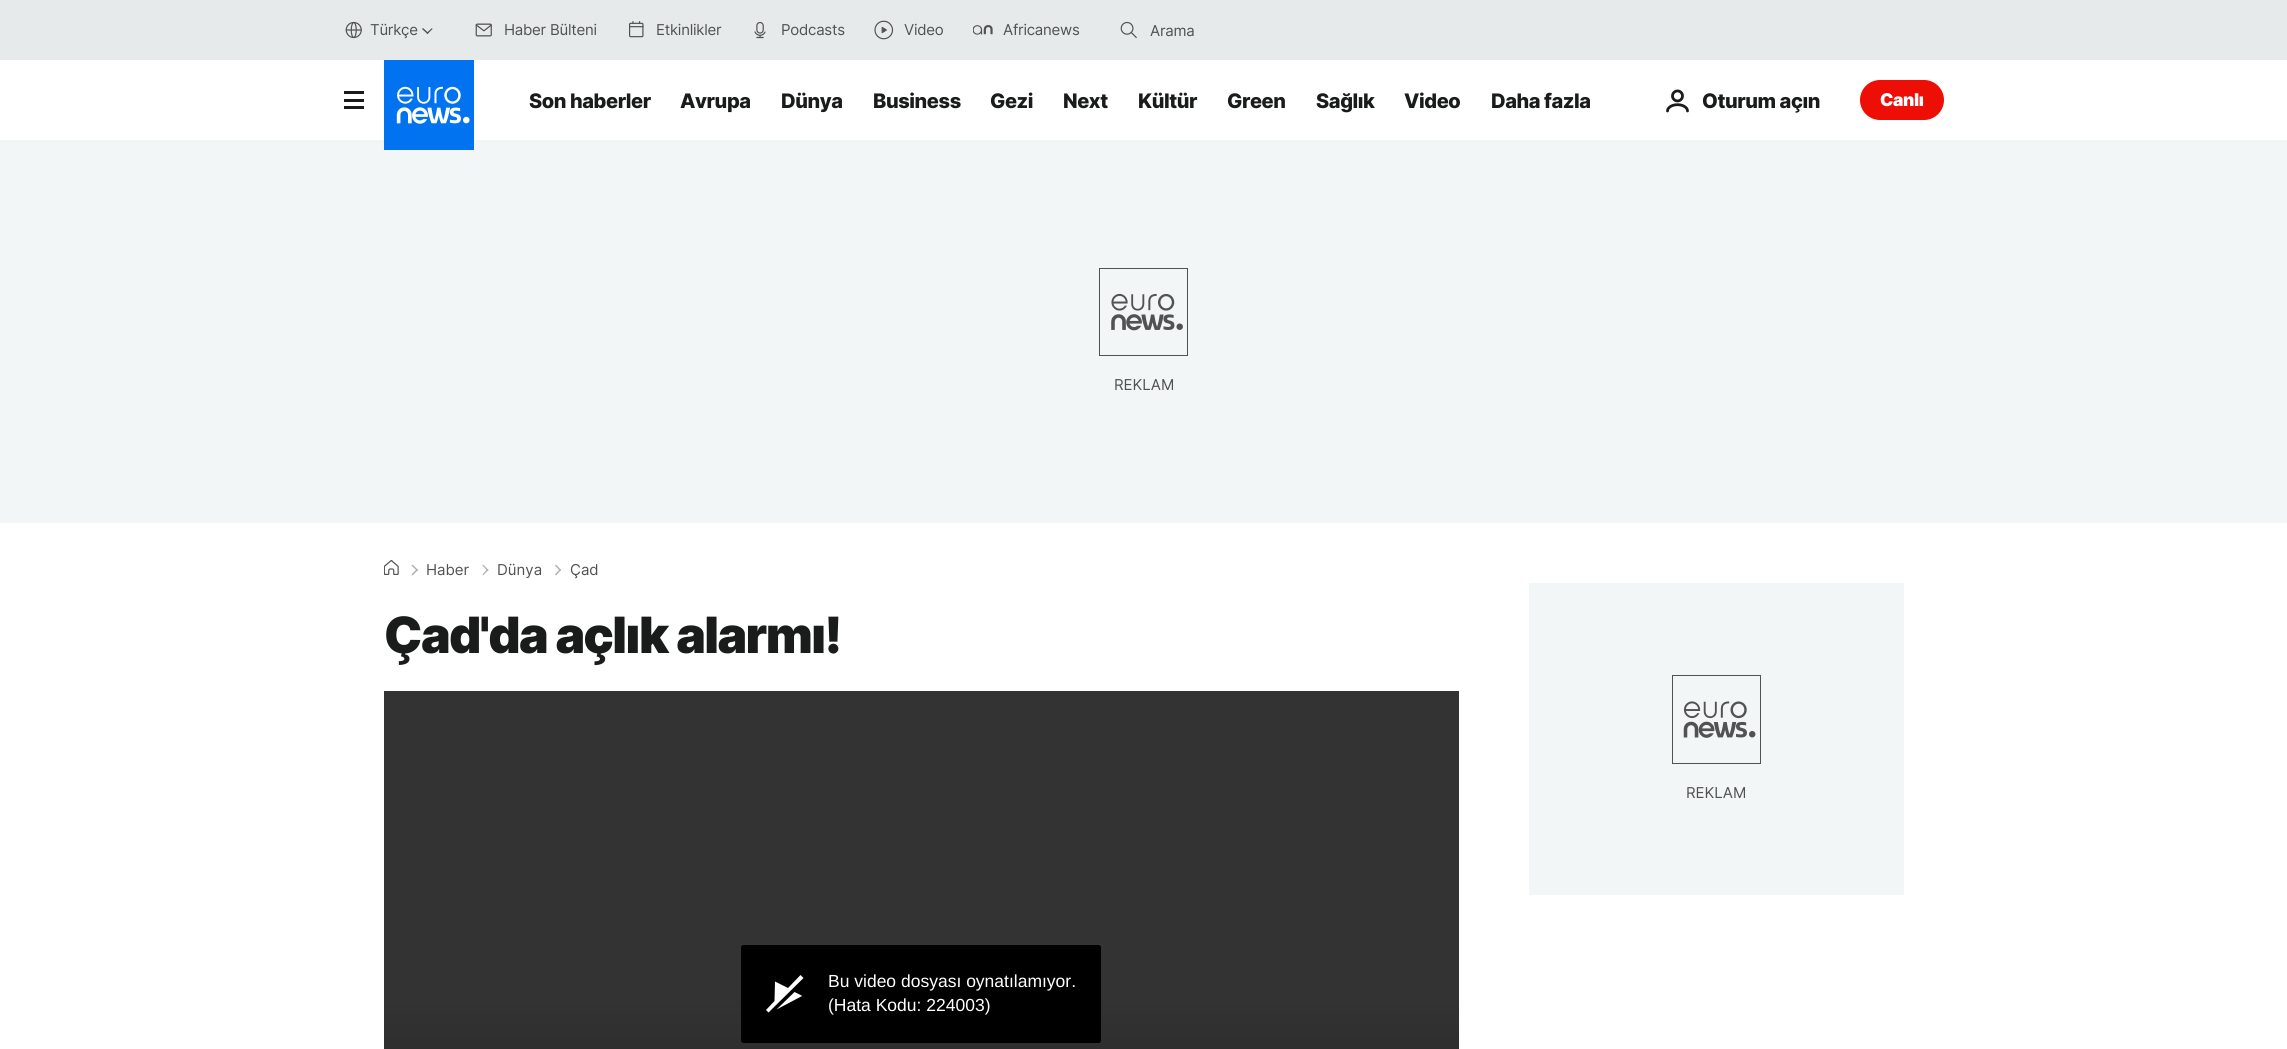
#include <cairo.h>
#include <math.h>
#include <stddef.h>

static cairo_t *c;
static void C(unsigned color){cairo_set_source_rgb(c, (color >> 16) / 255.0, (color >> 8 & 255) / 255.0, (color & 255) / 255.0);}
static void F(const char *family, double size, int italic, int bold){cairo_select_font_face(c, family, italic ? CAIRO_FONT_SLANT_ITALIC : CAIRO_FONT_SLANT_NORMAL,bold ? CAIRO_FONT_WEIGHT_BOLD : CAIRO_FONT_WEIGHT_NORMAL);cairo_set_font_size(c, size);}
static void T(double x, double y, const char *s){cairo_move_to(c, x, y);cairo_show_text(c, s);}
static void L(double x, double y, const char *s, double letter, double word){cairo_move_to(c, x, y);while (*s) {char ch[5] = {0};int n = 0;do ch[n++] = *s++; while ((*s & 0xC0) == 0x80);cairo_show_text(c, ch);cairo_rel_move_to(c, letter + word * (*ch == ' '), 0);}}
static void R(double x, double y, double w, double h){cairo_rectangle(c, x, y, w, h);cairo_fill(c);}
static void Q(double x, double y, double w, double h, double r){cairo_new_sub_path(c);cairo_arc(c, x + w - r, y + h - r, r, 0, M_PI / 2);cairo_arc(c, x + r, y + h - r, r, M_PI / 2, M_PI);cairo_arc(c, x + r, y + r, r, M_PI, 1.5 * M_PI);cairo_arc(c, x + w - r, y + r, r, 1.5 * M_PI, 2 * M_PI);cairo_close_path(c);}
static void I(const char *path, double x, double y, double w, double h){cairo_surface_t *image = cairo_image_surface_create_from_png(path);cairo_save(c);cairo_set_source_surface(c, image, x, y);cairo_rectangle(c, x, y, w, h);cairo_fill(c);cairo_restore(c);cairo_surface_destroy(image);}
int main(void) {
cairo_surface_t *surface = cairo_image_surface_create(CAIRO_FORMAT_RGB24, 2287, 1049);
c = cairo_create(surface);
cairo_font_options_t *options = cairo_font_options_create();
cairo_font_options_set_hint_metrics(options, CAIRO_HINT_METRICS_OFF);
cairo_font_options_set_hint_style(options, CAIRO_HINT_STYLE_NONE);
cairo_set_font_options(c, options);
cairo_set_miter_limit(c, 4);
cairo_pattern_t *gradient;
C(0xffffff);
cairo_paint(c);
C(0xe6eaeb);
R(0,0,2287,60);
I("1.png",345,21,17,18);
F("Inter",15,0,0);
C(0x515252);
L(370,35,"Türkçe",-.25,0);
cairo_new_path(c);
cairo_move_to(c,432.5,29);
cairo_line_to(c,427.5,34);
cairo_line_to(c,426.5,33);
cairo_line_to(c,432,28);
cairo_close_path(c);
cairo_fill(c);
cairo_new_path(c);
cairo_move_to(c,428.5,33);
cairo_line_to(c,427.5,34);
cairo_line_to(c,422,29);
cairo_line_to(c,423,28);
cairo_close_path(c);
cairo_fill(c);
I("2.png",475,23,17,14);
L(504,35,"Haber Bülteni",-.25,0);
I("3.png",629,21,15,17);
L(656,35,"Etkinlikler",-.25,0);
I("4.png",754,21,12,18);
L(781,35,"Podcasts",-.25,0);
I("5.png",874,20,20,20);
L(904,35,"Video",-.25,0);
I("6.png",973,25,20,10);
L(1003,35,"Africanews",-.25,0);
I("7.png",1120,21,17,18);
L(1150,36,"Arama",-.25,0);
C(0x1a1b1b);
R(344,91,20,3);
R(344,99,20,3);
R(344,106,20,3);
C(0xf2f6f7);
R(0,140,2287,383);
I("8.png",384,60,90,90);
F("Inter ExtraBold",20,0,0);
C(0x1a1b1b);
L(529,108,"Son haberler",-.4,0);
L(680,108,"Avrupa",-.4,0);
L(781,108,"Dünya",-.4,0);
L(873,108,"Business",-.4,0);
L(990,108,"Gezi",-.4,0);
L(1063,108,"Next",-.4,0);
L(1138,108,"Kültür",-.4,0);
L(1227,108,"Green",-.4,0);
L(1316,108,"Sağlık",-.4,0);
L(1404,108,"Video",-.4,0);
L(1491,108,"Daha fazla",-.4,0);
I("9.png",1666,89,23,24);
L(1702,108,"Oturum açın",-.4,0);
C(0xed0e05);
Q(1860,80,84,40,20);
cairo_fill(c);
F("Inter Black",17.5,0,0);
C(0xffffff);
L(1880,106,"Canlı",-.4,0);
I("10.png",1099,268,89,88);
F("Inter",15,0,0);
C(0x515252);
T(1114,390,"REKLAM");
I("11.png",384,560,15,15);
C(0xabadae);
cairo_new_path(c);
cairo_move_to(c,412.5,564.5);
cairo_line_to(c,418,570);
cairo_line_to(c,417,571);
cairo_line_to(c,411.5,565.5);
cairo_close_path(c);
cairo_fill(c);
cairo_new_path(c);
cairo_move_to(c,417,569);
cairo_line_to(c,418,570);
cairo_line_to(c,412.5,575.5);
cairo_line_to(c,411.5,574.5);
cairo_close_path(c);
cairo_fill(c);
C(0x515252);
T(426,575,"Haber");
C(0xabadae);
cairo_new_path(c);
cairo_move_to(c,483,564.5);
cairo_line_to(c,488.5,570);
cairo_line_to(c,487.5,571);
cairo_line_to(c,482.5,565.5);
cairo_close_path(c);
cairo_fill(c);
cairo_new_path(c);
cairo_move_to(c,487.5,569);
cairo_line_to(c,488.5,570);
cairo_line_to(c,483,575.5);
cairo_line_to(c,482.5,574.5);
cairo_close_path(c);
cairo_fill(c);
C(0x515252);
T(497,575,"Dünya");
C(0xabadae);
cairo_new_path(c);
cairo_move_to(c,556,564.5);
cairo_line_to(c,561,570);
cairo_line_to(c,560,571);
cairo_line_to(c,555,565.5);
cairo_close_path(c);
cairo_fill(c);
cairo_new_path(c);
cairo_move_to(c,560,569);
cairo_line_to(c,561,570);
cairo_line_to(c,556,575.5);
cairo_line_to(c,555,574.5);
cairo_close_path(c);
cairo_fill(c);
C(0x515252);
T(570,575,"Çad");
F("Inter Black",50,0,0);
C(0x1a1b1b);
L(384,653,"Çad'da açlık alarmı!",-1.5,0);
C(0x333333);
R(384,691,1075,305);
gradient = cairo_pattern_create_linear(921,996,921,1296);
cairo_pattern_add_color_stop_rgba(gradient,0,0.2,0.2,0.2,1);
cairo_pattern_add_color_stop_rgba(gradient,.77,0.122,0.122,0.122,1);
cairo_pattern_add_color_stop_rgba(gradient,1,0.122,0.122,0.122,1);
cairo_set_source(c,gradient);
cairo_pattern_destroy(gradient);
R(384,996,1075,53);
C(0x000000);
Q(741,945,360,98,2.5);
cairo_fill(c);
C(0xffffff);
cairo_new_path(c);
cairo_move_to(c,802,996);
cairo_line_to(c,776.5,1009.5);
cairo_line_to(c,794.5,992);
cairo_curve_to(c,801.5,995.5,803,996,802,996.5);
cairo_close_path(c);
cairo_move_to(c,800.5,975);
cairo_line_to(c,788,988);
cairo_line_to(c,775,981.5);
cairo_line_to(c,774.5,1001);
cairo_line_to(c,766,1010);
cairo_line_to(c,768.5,1012.5);
cairo_line_to(c,803.5,978);
cairo_close_path(c);
cairo_fill(c);
F("Liberation Sans",17.5,0,0);
T(828,987,"Bu video dosyası oynatılamıyor.");
T(828,1011,"(Hata Kodu: 224003)");
C(0xf2f6f7);
R(1529,583,375,312);
I("12.png",1672,675,89,89);
F("Inter",15,0,0);
C(0x515252);
T(1686,798,"REKLAM");
cairo_surface_write_to_png(surface, "o.png");
cairo_font_options_destroy(options);
cairo_destroy(c);
cairo_surface_destroy(surface);
return 0;
}
